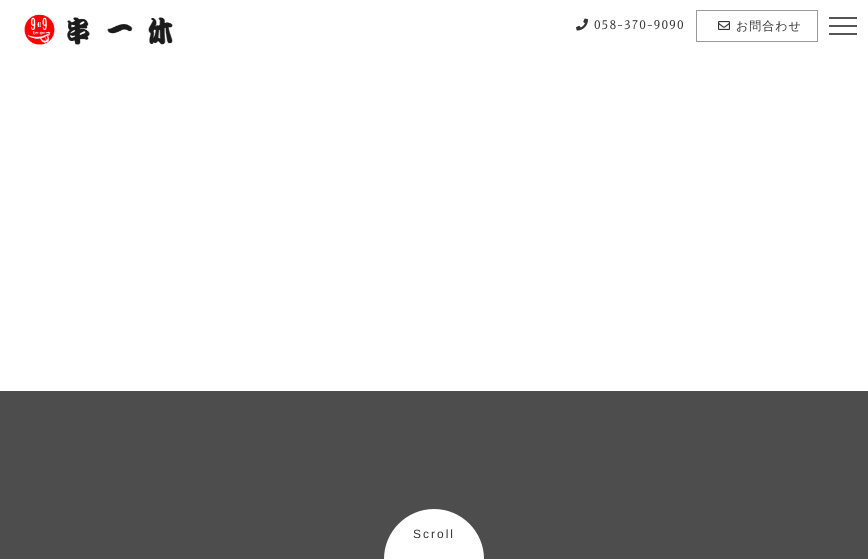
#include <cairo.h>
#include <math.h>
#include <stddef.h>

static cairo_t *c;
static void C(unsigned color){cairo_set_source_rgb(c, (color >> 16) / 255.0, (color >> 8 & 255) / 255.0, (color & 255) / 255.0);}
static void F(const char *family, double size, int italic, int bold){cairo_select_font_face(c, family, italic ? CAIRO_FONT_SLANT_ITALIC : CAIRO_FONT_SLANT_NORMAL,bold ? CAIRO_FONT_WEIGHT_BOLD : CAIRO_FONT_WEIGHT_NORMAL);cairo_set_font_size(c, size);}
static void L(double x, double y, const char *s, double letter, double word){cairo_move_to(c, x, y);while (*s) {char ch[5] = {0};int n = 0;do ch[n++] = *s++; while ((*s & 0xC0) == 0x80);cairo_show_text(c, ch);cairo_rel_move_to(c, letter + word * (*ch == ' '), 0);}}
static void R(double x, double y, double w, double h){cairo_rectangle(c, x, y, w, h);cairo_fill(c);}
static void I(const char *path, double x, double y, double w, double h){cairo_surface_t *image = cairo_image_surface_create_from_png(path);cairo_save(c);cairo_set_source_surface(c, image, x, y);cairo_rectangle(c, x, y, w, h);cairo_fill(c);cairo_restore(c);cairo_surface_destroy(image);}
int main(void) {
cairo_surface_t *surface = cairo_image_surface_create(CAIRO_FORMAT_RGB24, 868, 559);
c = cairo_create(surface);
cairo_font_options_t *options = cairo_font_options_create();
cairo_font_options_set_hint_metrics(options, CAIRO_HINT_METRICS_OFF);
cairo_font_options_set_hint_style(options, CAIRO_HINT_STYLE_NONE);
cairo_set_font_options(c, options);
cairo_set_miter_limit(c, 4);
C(0xffffff);
cairo_paint(c);
I("1.png",24,14,149,31);
I("2.png",576,18,12,13);
F("Sawarabi Mincho",12,0,0);
C(0x333333);
L(594,29,"058-370-9090",1,0);
cairo_rectangle(c,696.5,10.5,121,31);
C(0x999999);
cairo_set_line_width(c,1);
cairo_stroke(c);
I("3.png",718,21,12,9);
F("WenQuanYi Zen Hei Medium",12,0,0);
C(0x333333);
L(736,30,"お問合わせ",1,0);
C(0x555555);
R(829,17,28,2);
R(829,25,28,2);
R(829,33,28,2);
C(0x4d4d4d);
R(0,391,868,168);
C(0xffffff);
cairo_new_path(c);
cairo_move_to(c,434,509);
cairo_curve_to(c,461.5,509,484,531.5,484,559);
cairo_line_to(c,384,559);
cairo_curve_to(c,384,531.5,406.5,509,434,509);
cairo_close_path(c);
cairo_fill(c);
F("Liberation Sans",12,0,0);
C(0x333333);
L(413,538,"Scroll",2,0);
cairo_surface_write_to_png(surface, "o.png");
cairo_font_options_destroy(options);
cairo_destroy(c);
cairo_surface_destroy(surface);
return 0;
}
